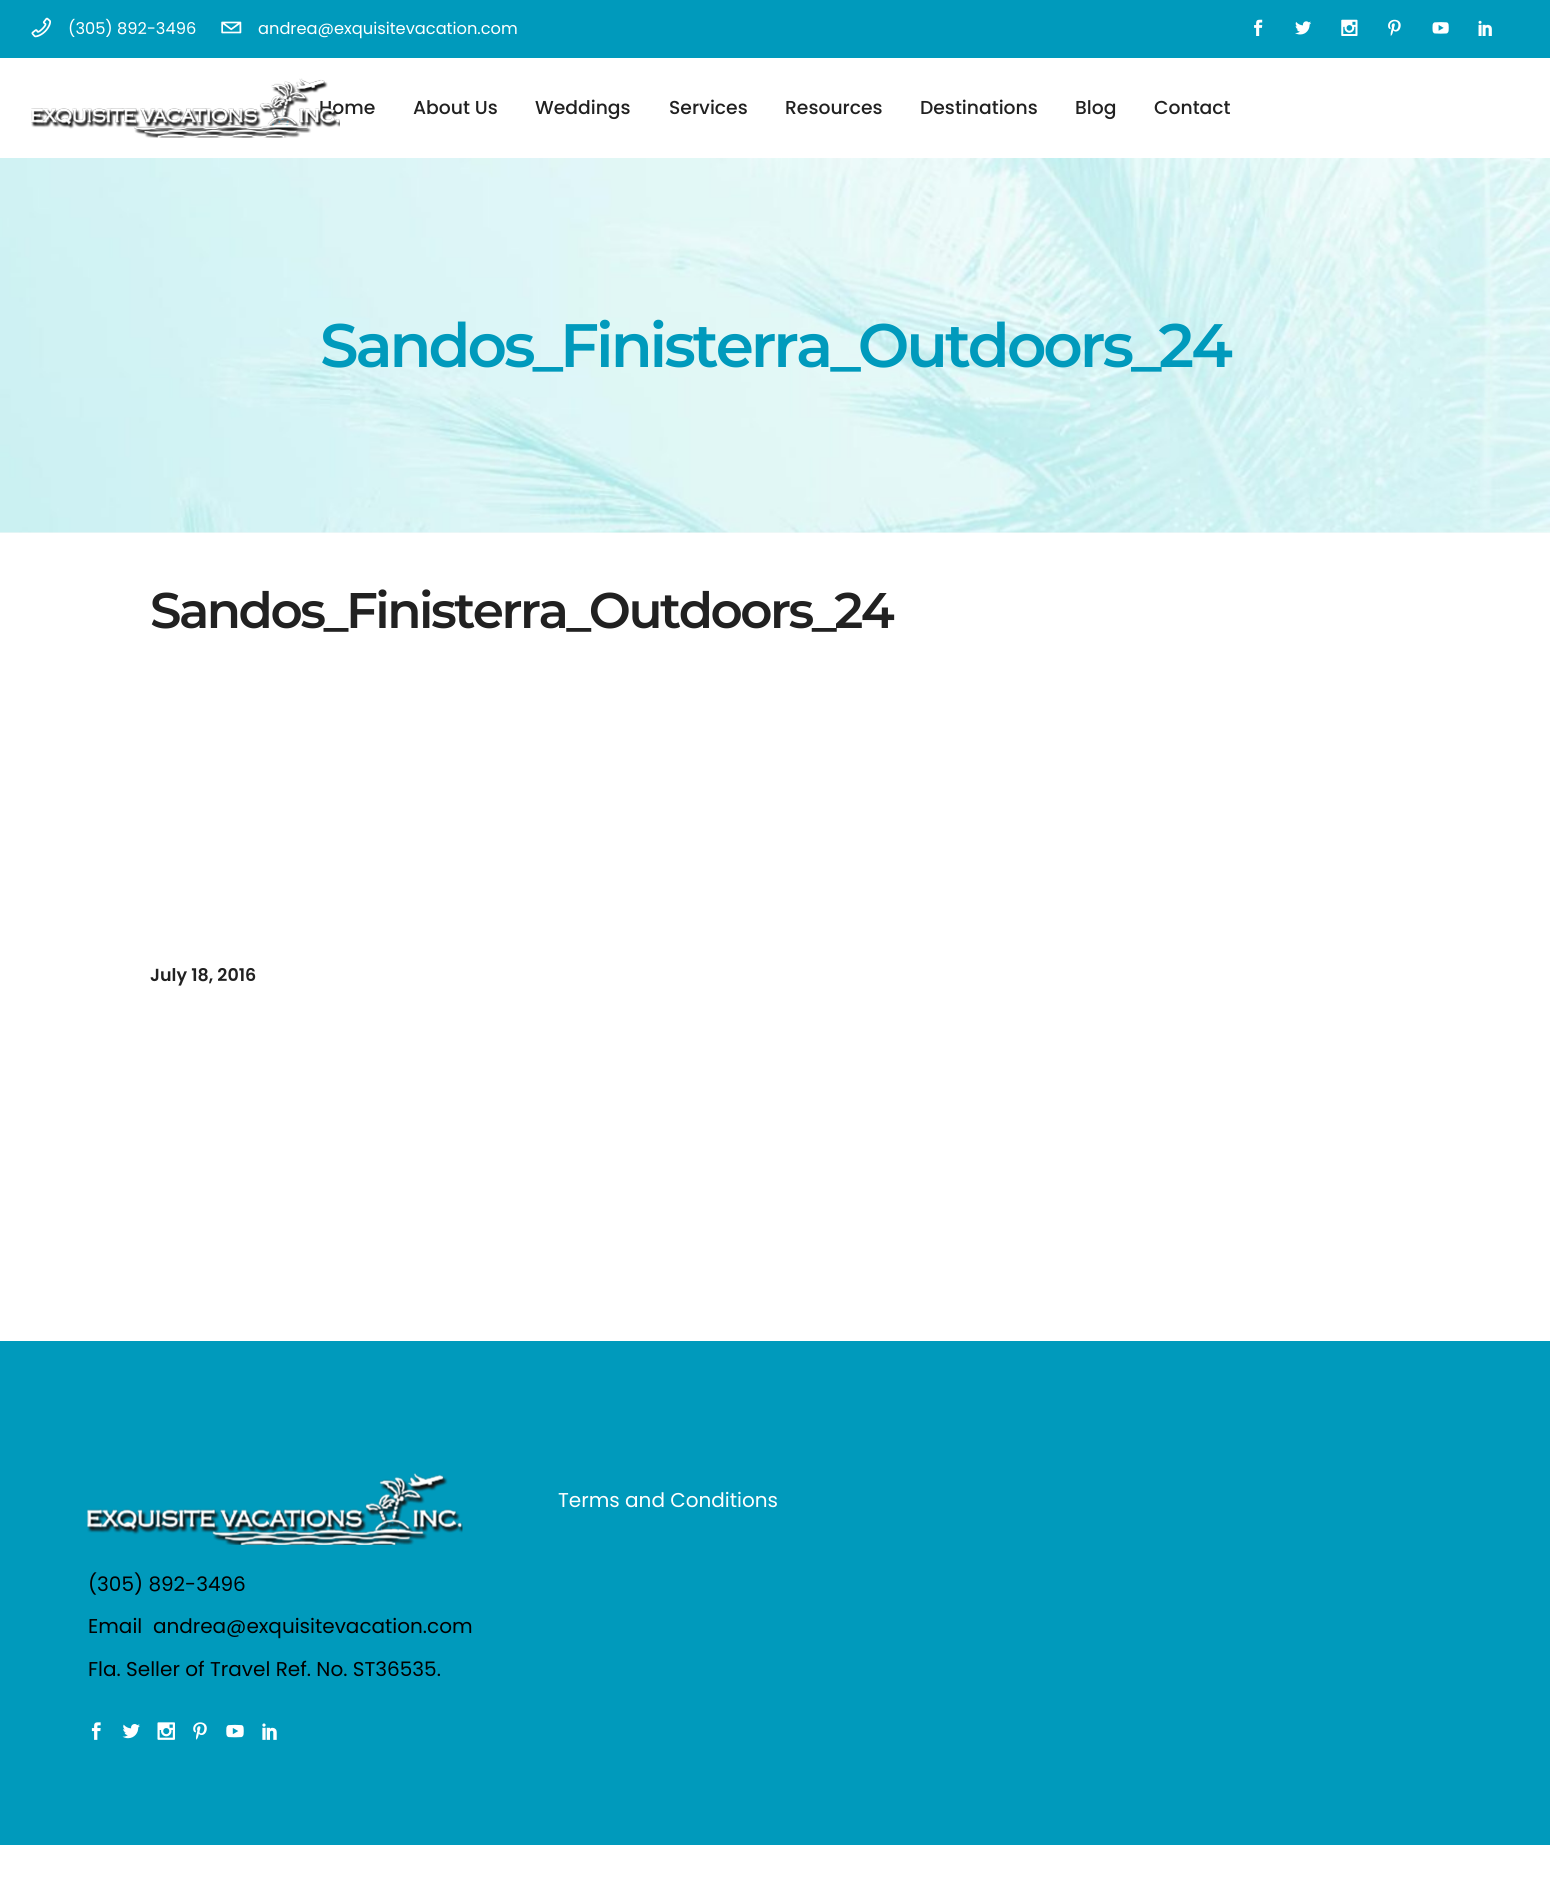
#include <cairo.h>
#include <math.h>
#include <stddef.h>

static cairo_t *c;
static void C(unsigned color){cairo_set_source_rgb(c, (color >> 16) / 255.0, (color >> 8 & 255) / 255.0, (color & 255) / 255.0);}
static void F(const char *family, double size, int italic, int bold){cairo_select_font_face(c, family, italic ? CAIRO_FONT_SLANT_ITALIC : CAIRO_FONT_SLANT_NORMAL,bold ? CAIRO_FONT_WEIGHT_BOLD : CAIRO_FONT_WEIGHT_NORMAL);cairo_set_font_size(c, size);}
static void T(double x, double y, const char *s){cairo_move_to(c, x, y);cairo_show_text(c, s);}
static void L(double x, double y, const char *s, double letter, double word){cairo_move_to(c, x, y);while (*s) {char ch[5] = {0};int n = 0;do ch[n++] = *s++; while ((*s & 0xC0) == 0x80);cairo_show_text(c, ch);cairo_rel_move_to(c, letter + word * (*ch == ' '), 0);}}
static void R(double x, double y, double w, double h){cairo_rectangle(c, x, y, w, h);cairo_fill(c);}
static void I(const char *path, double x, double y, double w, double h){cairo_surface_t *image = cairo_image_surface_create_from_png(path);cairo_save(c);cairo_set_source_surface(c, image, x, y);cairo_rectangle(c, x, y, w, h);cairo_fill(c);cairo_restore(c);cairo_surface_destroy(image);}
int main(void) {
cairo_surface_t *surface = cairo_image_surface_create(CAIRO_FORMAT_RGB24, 1550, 1889);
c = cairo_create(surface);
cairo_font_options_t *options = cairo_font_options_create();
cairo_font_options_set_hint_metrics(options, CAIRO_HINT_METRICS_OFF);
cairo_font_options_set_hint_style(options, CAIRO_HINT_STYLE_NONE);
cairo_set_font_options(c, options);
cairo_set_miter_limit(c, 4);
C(0xffffff);
cairo_paint(c);
C(0x009abc);
R(0,0,1550,58);
I("1.png",31,17,20,21);
F("Poppins",16.25,0,0);
C(0xffffff);
T(68,34,"(305) 892-3496");
I("2.png",221,21,21,13);
T(258,34,"andrea@exquisitevacation.com");
I("3.png",1254,19,9,17);
I("4.png",1295,21,16,14);
I("5.png",1341,19,17,17);
I("6.png",1388,19,13,17);
I("7.png",1432,22,17,12);
I("8.png",1478,20,14,16);
F("Poppins Medium",18.75,0,0);
C(0x212121);
T(319,114,"Home");
I("9.png",31,78,309,60);
T(413,114,"About Us");
T(535,114,"Weddings");
T(669,114,"Services");
T(785,114,"Resources");
T(920,114,"Destinations");
T(1075,114,"Blog");
T(1154,114,"Contact");
C(0xf8f8f8);
R(0,532,1550,1);
I("10.png",0,158,1550,375);
F("Montserrat SemiBold",61.25,0,0);
C(0x009abc);
L(320,367,"Sandos_Finisterra_Outdoors_24",-3.05,0);
F("Montserrat SemiBold",50,0,0);
C(0x212121);
L(150,628,"Sandos_Finisterra_Outdoors_24",-2.5,0);
F("Poppins SemiBold",17.5,0,0);
T(150,981,"July 18, 2016");
C(0x009abc);
R(0,1341,1550,504);
F("Poppins",20,0,0);
C(0xffffff);
T(558,1507,"Terms and Conditions");
I("11.png",87,1473,376,72);
C(0x000000);
T(88,1591,"(305) 892-3496");
T(88,1633,"Email  andrea@exquisitevacation.com");
T(88,1676,"Fla. Seller of Travel Ref. No. ST36535.");
I("12.png",91,1722,10,18);
I("13.png",122,1724,18,15);
I("14.png",157,1722,18,18);
I("15.png",193,1722,14,18);
I("16.png",226,1724,18,14);
I("17.png",262,1723,15,17);
cairo_surface_write_to_png(surface, "o.png");
cairo_font_options_destroy(options);
cairo_destroy(c);
cairo_surface_destroy(surface);
return 0;
}
